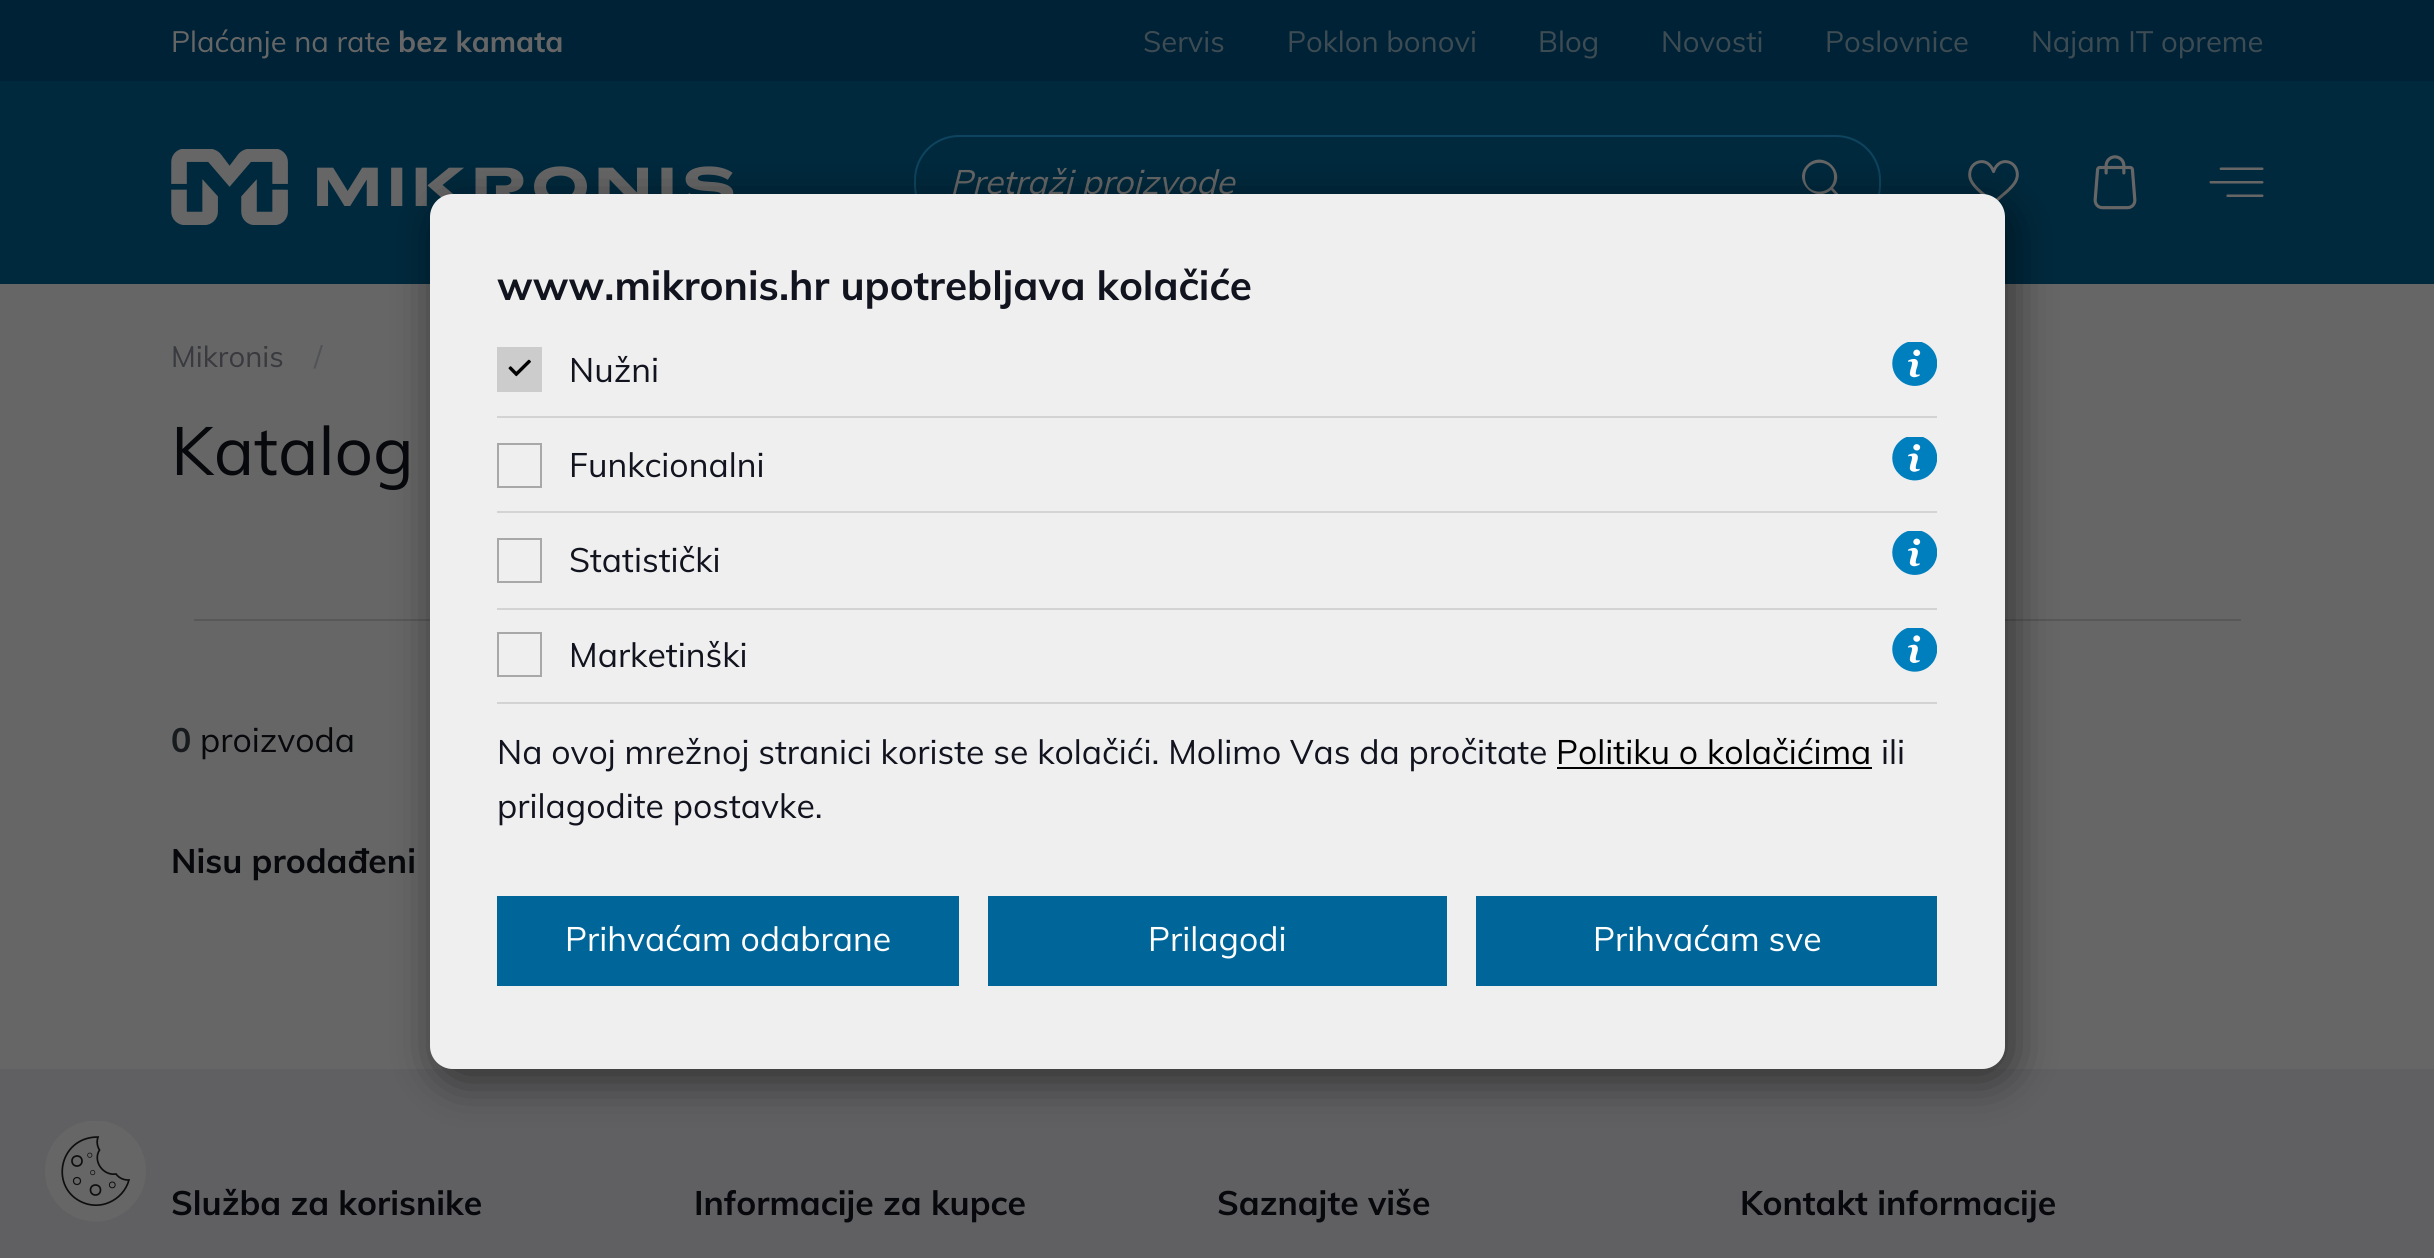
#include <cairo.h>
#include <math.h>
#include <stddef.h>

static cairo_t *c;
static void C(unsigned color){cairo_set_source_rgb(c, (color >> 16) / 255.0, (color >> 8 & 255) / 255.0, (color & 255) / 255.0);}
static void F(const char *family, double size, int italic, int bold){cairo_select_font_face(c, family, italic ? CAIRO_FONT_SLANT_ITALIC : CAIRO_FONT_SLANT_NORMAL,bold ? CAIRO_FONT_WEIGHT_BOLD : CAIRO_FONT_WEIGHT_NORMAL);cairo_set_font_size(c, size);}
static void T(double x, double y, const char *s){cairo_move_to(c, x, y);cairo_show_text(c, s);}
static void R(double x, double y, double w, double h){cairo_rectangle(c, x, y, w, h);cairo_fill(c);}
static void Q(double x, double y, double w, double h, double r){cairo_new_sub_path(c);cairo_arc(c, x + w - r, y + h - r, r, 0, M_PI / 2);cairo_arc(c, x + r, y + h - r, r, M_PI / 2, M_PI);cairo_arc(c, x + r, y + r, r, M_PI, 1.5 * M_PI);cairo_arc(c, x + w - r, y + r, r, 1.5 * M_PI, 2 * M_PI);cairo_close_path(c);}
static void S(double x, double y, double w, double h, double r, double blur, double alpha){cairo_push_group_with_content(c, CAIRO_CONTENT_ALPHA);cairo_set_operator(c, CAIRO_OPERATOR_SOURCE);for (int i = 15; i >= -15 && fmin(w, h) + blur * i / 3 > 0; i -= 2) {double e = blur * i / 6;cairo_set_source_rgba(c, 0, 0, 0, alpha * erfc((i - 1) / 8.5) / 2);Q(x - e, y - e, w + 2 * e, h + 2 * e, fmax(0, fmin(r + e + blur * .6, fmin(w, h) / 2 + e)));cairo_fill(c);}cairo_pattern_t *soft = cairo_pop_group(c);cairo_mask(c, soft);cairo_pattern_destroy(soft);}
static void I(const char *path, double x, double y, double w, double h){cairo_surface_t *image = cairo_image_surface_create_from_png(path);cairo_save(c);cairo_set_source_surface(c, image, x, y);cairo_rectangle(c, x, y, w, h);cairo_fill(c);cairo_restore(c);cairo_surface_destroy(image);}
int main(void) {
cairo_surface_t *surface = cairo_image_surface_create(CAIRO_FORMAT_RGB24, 2434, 1258);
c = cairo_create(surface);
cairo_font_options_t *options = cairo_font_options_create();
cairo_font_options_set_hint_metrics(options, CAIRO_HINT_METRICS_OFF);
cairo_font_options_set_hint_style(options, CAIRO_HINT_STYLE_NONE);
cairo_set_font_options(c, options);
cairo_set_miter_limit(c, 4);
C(0x666666);
cairo_paint(c);
C(0x00293d);
R(0,81,2434,203);
C(0x002236);
R(0,0,2434,81);
F("Muli",29.25,0,0);
C(0x666666);
T(171,52,"Plaćanje na rate");
F("Muli",29.25,0,1);
T(398,52,"bez kamata");
F("Muli",29.25,0,0);
C(0x3d4b53);
T(1143,52,"Servis");
T(1287,52,"Poklon bonovi");
T(1538,52,"Blog");
T(1661,52,"Novosti");
T(1825,52,"Poslovnice");
T(2031,52,"Najam IT opreme");
I("1.png",171,149,563,76);
Q(915,136,965,93,44);
C(0x0e445f);
cairo_stroke(c);
F("Muli",33.75,1,0);
C(0x666666);
T(950,194,"Pretraži proizvode");
cairo_new_path(c);
cairo_move_to(c,1842,198);
cairo_curve_to(c,1843,199,1843,200,1842,200);
cairo_curve_to(c,1840,200,1833,192,1831,190);
cairo_curve_to(c,1814,204,1792,180,1807,165);
cairo_curve_to(c,1823,149,1847,172,1833,188);
cairo_close_path(c);
cairo_move_to(c,1805,177);
cairo_curve_to(c,1805,197,1834,196,1834,177);
cairo_curve_to(c,1834,158,1805,158,1805,177);
cairo_close_path(c);
cairo_fill(c);
I("2.png",1968,160,51,41);
I("3.png",2093,155,44,55);
I("4.png",2209,167,55,30);
F("Muli",29.25,0,0);
C(0x393a3f);
T(171,367,"Mikronis");
C(0x525356);
T(314,367,"/");
C(0x585858);
R(194,619,2047,2);
C(0x606062);
R(0,1069,2434,189);
cairo_save(c);
cairo_set_fill_rule(c,CAIRO_FILL_RULE_EVEN_ODD);
cairo_new_path(c);
cairo_move_to(c,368,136);
cairo_line_to(c,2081,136);
cairo_line_to(c,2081,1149);
cairo_line_to(c,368,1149);
cairo_close_path(c);
cairo_move_to(c,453,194);
cairo_line_to(c,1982,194);
cairo_curve_to(c,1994.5,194,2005,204.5,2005,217);
cairo_line_to(c,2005,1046);
cairo_curve_to(c,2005,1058.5,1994.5,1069,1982,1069);
cairo_line_to(c,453,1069);
cairo_curve_to(c,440.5,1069,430,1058.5,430,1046);
cairo_line_to(c,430,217);
cairo_curve_to(c,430,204.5,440.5,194,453,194);
cairo_close_path(c);
cairo_clip(c);
C(0x000000);
S(437,205,1575,875,23,22.5,.5);
cairo_restore(c);
C(0xefefef);
Q(430,194,1575,875,23);
cairo_fill(c);
F("Muli",40.5,0,1);
C(0x11131e);
T(497,300,"www.mikronis.hr upotrebljava kolačiće");
C(0xcccccc);
R(497,347,45,45);
I("5.png",508,359,23,18);
F("Muli",33.75,0,0);
C(0x11131e);
T(569,382,"Nužni");
I("6.png",1892,342,45,44);
C(0xd3d3d3);
R(497,416,1440,2);
cairo_rectangle(c,498,444,43,43);
C(0xa8a8a8);
cairo_stroke(c);
C(0x11131e);
T(569,477,"Funkcionalni");
I("7.png",1892,437,45,44);
C(0xd3d3d3);
R(497,511,1440,2);
cairo_rectangle(c,498,539,43,43);
C(0xa8a8a8);
cairo_stroke(c);
C(0x11131e);
T(569,572,"Statistički");
I("6.png",1892,531,45,44);
C(0xd3d3d3);
R(497,608,1440,2);
cairo_rectangle(c,498,633,43,43);
C(0xa8a8a8);
cairo_stroke(c);
C(0x11131e);
T(569,667,"Marketinški");
I("8.png",1892,628,45,44);
C(0xd3d3d3);
R(497,702,1440,2);
C(0x11131e);
T(497,764,"Na ovoj mrežnoj stranici koriste se kolačići. Molimo Vas da pročitate");
C(0x000000);
T(1556,764,"Politiku o kolačićima");
R(1557,767,315,2);
C(0x11131e);
T(1881,764,"ili");
T(497,818,"prilagodite postavke.");
C(0x006699);
R(497,896,462,90);
C(0xffffff);
T(565,951,"Prihvaćam odabrane");
C(0x006699);
R(988,896,459,90);
C(0xffffff);
T(1148,951,"Prilagodi");
C(0x006699);
R(1476,896,461,90);
C(0xffffff);
T(1593,951,"Prihvaćam sve");
cairo_save(c);
cairo_rectangle(c,45,1121,101,101);
cairo_clip(c);
C(0x666666);
cairo_arc(c,95.5,1171,50.5,0,2 * M_PI);
cairo_fill(c);
cairo_restore(c);
cairo_new_path(c);
cairo_move_to(c,128,1180);
cairo_curve_to(c,123.5,1180,119,1178,116,1174);
cairo_curve_to(c,103,1176,92.5,1161,99.5,1150);
cairo_curve_to(c,97,1146,96.5,1141.5,98,1137);
cairo_curve_to(c,58,1137,49,1189.5,84,1203);
cairo_curve_to(c,92,1206,101,1206,109,1202.5);
cairo_curve_to(c,118.5,1198.5,126,1190.5,129,1180);
cairo_close_path(c);
C(0x0e0e0e);
cairo_set_line_width(c,1.7);
cairo_stroke(c);
cairo_arc(c,77,1161,5,0,2 * M_PI);
cairo_stroke(c);
cairo_arc(c,95.5,1190,5,0,2 * M_PI);
cairo_stroke(c);
cairo_arc(c,77,1181,3.5,0,2 * M_PI);
cairo_set_line_width(c,1.2);
cairo_stroke(c);
cairo_arc(c,112.3,1184.9,2.9,0,2 * M_PI);
cairo_set_line_width(c,1);
cairo_stroke(c);
cairo_arc(c,92.7,1172.6,2.2,0,2 * M_PI);
cairo_set_line_width(c,.7);
cairo_stroke(c);
cairo_arc(c,89.8,1155.2,2.2,0,2 * M_PI);
cairo_stroke(c);
F("Muli",67.5,0,0);
C(0x07080c);
T(171,475,"Katalog");
F("Muli",33.75,0,1);
C(0x171b1e);
T(171,752,"0");
F("Muli",33.75,0,0);
C(0x07080c);
T(200,752,"proizvoda");
F("Muli",33.75,0,1);
T(171,873,"Nisu prodađeni");
T(171,1215,"Služba za korisnike");
T(694,1215,"Informacije za kupce");
T(1217,1215,"Saznajte više");
T(1740,1215,"Kontakt informacije");
cairo_surface_write_to_png(surface, "o.png");
cairo_font_options_destroy(options);
cairo_destroy(c);
cairo_surface_destroy(surface);
return 0;
}
